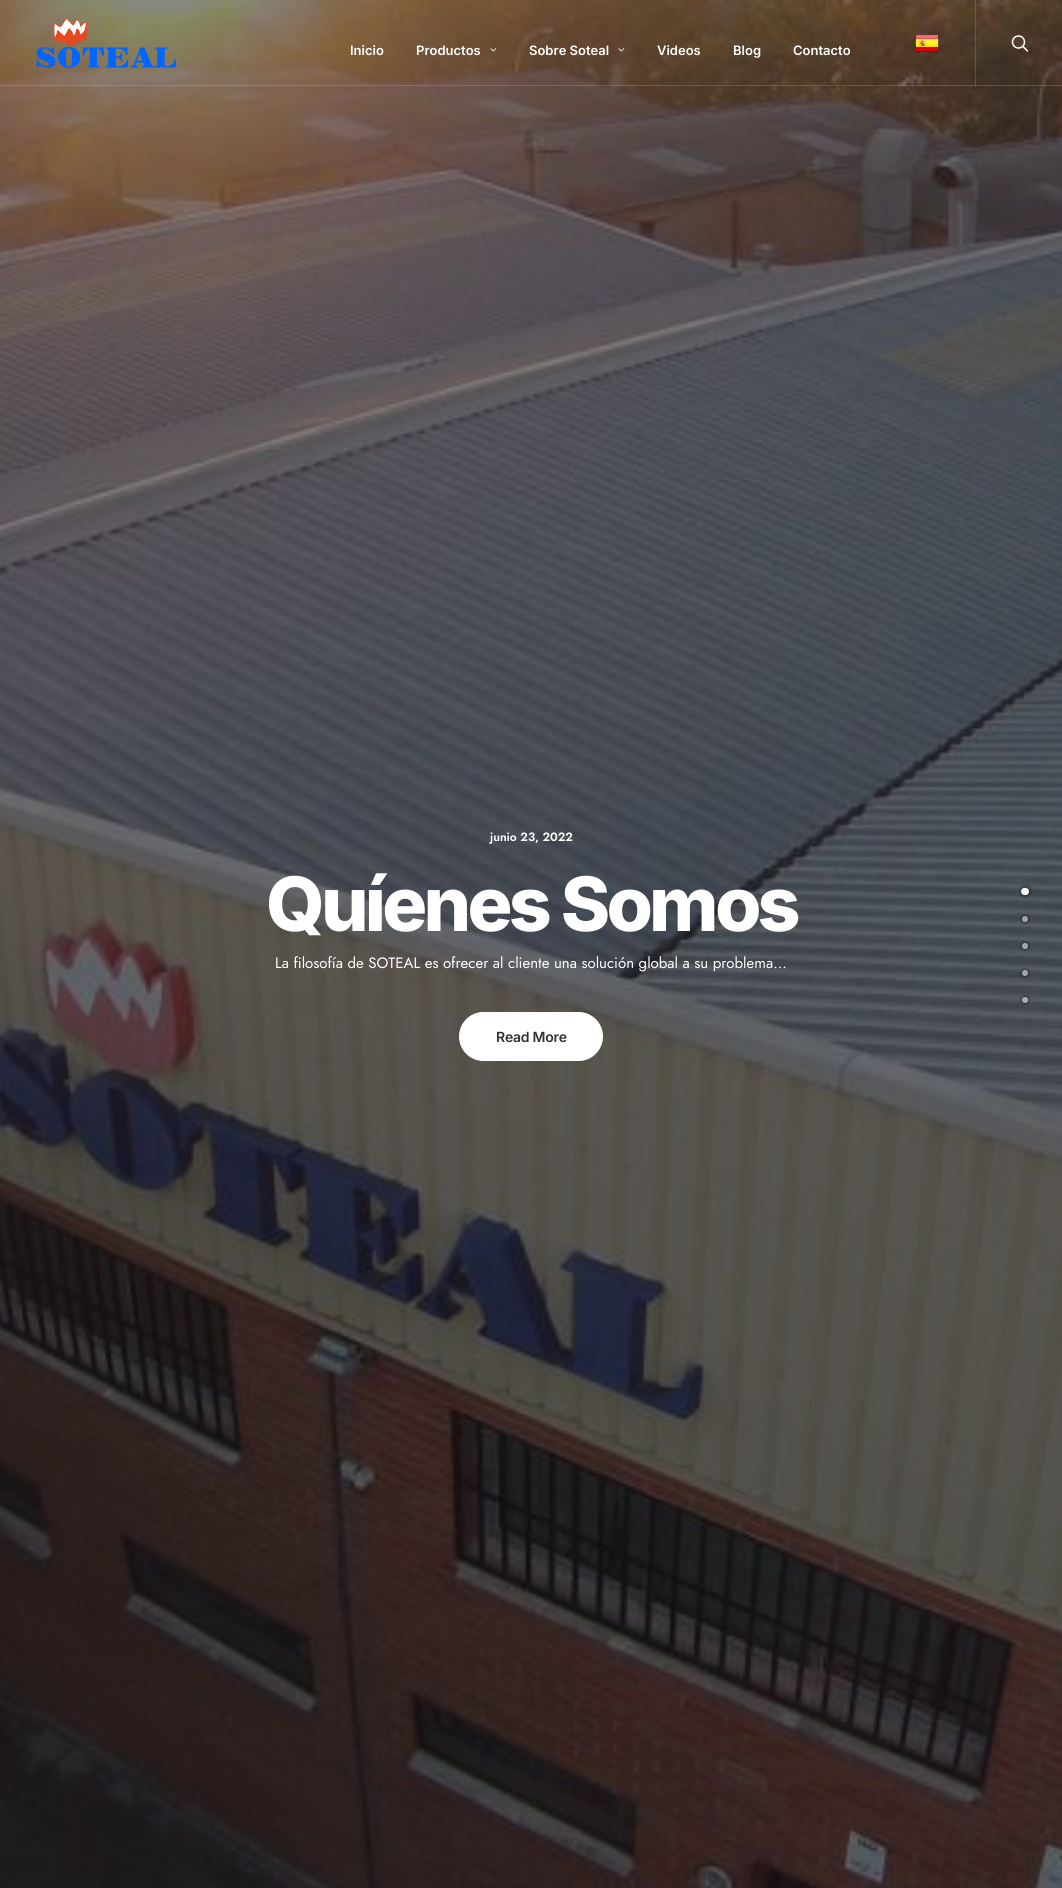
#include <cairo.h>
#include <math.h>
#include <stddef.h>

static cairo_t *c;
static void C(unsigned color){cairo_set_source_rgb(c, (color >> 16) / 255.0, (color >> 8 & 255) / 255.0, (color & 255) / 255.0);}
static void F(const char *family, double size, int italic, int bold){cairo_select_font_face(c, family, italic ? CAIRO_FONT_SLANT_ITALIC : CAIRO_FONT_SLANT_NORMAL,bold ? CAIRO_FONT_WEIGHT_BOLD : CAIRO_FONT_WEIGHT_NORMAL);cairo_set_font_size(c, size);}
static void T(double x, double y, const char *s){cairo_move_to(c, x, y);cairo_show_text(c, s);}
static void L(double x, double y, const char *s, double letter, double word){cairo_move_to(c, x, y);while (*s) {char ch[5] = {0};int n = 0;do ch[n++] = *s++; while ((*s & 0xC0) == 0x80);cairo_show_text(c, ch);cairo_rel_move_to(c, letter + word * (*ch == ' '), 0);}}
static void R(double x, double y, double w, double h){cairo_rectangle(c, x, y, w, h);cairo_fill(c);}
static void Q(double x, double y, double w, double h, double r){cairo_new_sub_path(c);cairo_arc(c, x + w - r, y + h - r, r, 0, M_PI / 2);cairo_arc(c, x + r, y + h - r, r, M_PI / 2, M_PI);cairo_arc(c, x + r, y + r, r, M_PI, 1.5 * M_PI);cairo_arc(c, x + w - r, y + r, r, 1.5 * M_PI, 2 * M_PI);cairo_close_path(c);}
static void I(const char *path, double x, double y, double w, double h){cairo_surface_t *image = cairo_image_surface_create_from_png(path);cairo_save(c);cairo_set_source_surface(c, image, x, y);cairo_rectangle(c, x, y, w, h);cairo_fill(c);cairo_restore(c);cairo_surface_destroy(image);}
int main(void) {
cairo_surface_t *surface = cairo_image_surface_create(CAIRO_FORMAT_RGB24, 1062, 1888);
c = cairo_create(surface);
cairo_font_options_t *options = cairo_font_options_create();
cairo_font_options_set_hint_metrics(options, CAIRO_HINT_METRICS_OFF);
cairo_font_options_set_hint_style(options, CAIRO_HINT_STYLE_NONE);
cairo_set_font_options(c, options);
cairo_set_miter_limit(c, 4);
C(0xffffff);
cairo_paint(c);
I("6.png",0,0,1062,1888);
I("1.png",36,18,141,50);
F("Inter SemiBold",13,0,0);
C(0xffffff);
T(350,55,"Inicio");
T(416,55,"Productos");
I("2.png",490,48,7,4);
T(529,55,"Sobre Soteal");
I("3.png",618,48,7,4);
T(657,55,"Videos");
T(733,55,"Blog");
T(793,55,"Contacto");
I("4.png",915,34,24,19);
cairo_set_source_rgba(c,1,1,1,0.15);
R(0,85,1062,1);
R(975,0,1,86);
I("5.png",1011,35,18,17);
F("Jost SemiBold",12,0,0);
C(0xffffff);
T(490,841,"junio 23, 2022");
F("Inter ExtraBold",75,0,0);
L(266,931,"Quíenes Somos",-3.75,0);
F("Jost",15,0,0);
T(275,968,"La filosofía de SOTEAL es ofrecer al cliente una solución global a su problema…");
Q(459.5,1012.5,143,48,24);
cairo_fill_preserve(c);
cairo_set_line_width(c,1);
cairo_stroke(c);
F("Inter SemiBold",14,0,0);
C(0x303133);
L(496,1042,"Read More",-.25,0);
cairo_new_path(c);
cairo_arc(c,1025.5,891.5,5,0,2 * M_PI);
cairo_set_source_rgba(c,0,0,0,0.2);
cairo_set_line_width(c,3);
cairo_stroke(c);
C(0xffffff);
Q(1021,888,8,7,3.5);
cairo_fill(c);
cairo_arc(c,1025,919,4,0,2 * M_PI);
cairo_set_source_rgba(c,0,0,0,0.2);
cairo_set_line_width(c,2);
cairo_stroke(c);
cairo_set_source_rgba(c,1,1,1,0.5);
cairo_arc(c,1025,919,3,0,2 * M_PI);
cairo_fill(c);
cairo_arc(c,1025,946,4,0,2 * M_PI);
cairo_set_source_rgba(c,0,0,0,0.2);
cairo_stroke(c);
cairo_set_source_rgba(c,1,1,1,0.5);
cairo_arc(c,1025,946,3,0,2 * M_PI);
cairo_fill(c);
cairo_arc(c,1025,973,4,0,2 * M_PI);
cairo_set_source_rgba(c,0,0,0,0.2);
cairo_stroke(c);
cairo_set_source_rgba(c,1,1,1,0.5);
cairo_arc(c,1025,973,3,0,2 * M_PI);
cairo_fill(c);
cairo_arc(c,1025,1000,4,0,2 * M_PI);
cairo_set_source_rgba(c,0,0,0,0.2);
cairo_stroke(c);
cairo_set_source_rgba(c,1,1,1,0.5);
cairo_arc(c,1025,1000,3,0,2 * M_PI);
cairo_fill(c);
cairo_surface_write_to_png(surface, "o.png");
cairo_font_options_destroy(options);
cairo_destroy(c);
cairo_surface_destroy(surface);
return 0;
}
